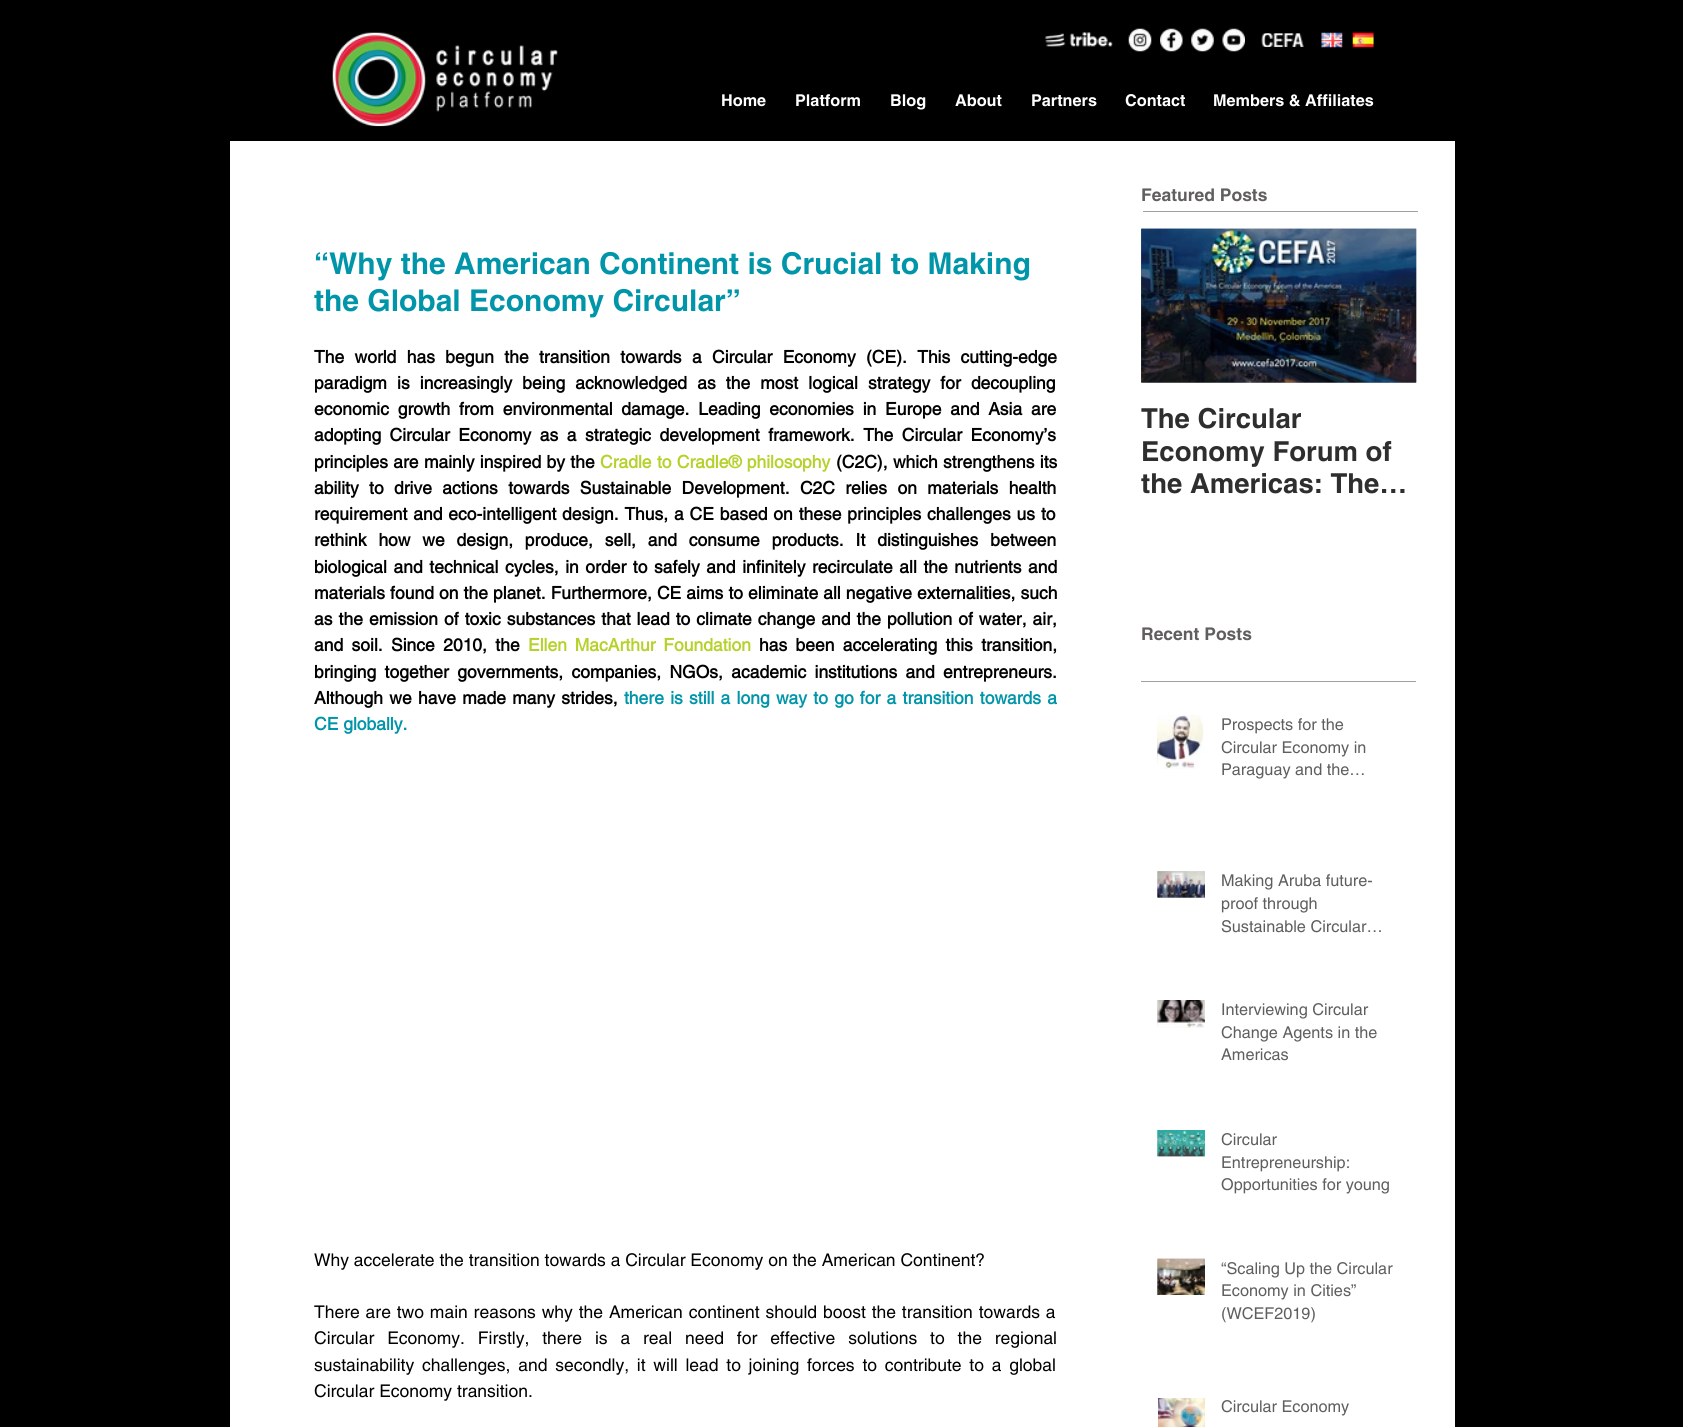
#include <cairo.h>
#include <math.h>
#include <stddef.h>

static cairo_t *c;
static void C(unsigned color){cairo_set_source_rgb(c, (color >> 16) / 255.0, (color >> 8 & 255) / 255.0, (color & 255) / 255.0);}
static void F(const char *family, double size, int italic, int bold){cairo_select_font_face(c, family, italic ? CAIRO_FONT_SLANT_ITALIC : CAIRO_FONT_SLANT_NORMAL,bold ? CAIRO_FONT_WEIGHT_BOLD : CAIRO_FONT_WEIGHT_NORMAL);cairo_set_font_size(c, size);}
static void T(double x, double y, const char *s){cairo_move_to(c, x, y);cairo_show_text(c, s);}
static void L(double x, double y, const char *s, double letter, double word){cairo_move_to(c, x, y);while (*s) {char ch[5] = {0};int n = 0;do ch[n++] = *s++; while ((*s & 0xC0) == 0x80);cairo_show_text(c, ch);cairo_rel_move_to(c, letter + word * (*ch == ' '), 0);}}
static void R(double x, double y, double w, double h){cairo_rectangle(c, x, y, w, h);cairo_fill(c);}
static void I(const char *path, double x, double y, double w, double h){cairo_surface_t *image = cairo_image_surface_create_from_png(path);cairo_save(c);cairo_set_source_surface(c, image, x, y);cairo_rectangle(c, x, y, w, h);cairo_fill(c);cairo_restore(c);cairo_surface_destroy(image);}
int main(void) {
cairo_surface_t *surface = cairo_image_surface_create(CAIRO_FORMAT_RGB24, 1683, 1427);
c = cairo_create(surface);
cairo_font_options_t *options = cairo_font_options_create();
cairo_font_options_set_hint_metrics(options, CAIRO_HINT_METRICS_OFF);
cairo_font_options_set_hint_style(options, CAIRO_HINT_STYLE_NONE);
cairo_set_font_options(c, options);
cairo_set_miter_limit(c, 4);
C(0x000000);
cairo_paint(c);
I("1.png",332,32,226,95);
I("2.png",1045,31,68,16);
I("3.png",1128,28,24,24);
I("4.png",1160,28,23,24);
I("5.png",1191,28,23,24);
I("6.png",1222,28,23,24);
I("7.png",1261,33,43,15);
I("8.png",1321,32,22,16);
I("9.png",1352,32,22,16);
F("helvetica",16.25,0,1);
C(0xffffff);
T(721,106,"Home");
T(795,106,"Platform");
T(890,106,"Blog");
T(955,106,"About");
T(1031,106,"Partners");
T(1125,106,"Contact");
T(1213,106,"Members & Affiliates");
R(230,141,1225,1286);
F("helvetica",17.5,0,1);
C(0x605e5e);
T(1141,201,"Featured Posts");
C(0xa0a09f);
R(1143,211,275,1);
F("helvetica",30,0,1);
C(0x0095a9);
T(314,274,"“Why the American Continent is Crucial to Making");
T(314,311,"the Global Economy Circular”");
F("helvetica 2",17.5,0,1);
C(0x000000);
L(314,363,"The world has begun the transition towards a Circular Economy (CE). This cutting-edge",0,5.5);
L(314,389,"paradigm is increasingly being acknowledged as the most logical strategy for decoupling",0,5.25);
L(314,415,"economic growth from environmental damage. Leading economies in Europe and Asia are",0,3.9);
L(314,441,"adopting Circular Economy as a strategic development framework. The Circular Economy’s",0,3.6);
L(314,468,"principles are mainly inspired by the",0,.5);
C(0xb5d12a);
L(600,468,"Cradle to Cradle® philosophy",0,.5);
C(0x000000);
L(836,468,"(C2C), which strengthens its",0,.5);
L(314,494,"ability to drive actions towards Sustainable Development. C2C relies on materials health",0,5.5);
L(314,520,"requirement and eco-intelligent design. Thus, a CE based on these principles challenges us to",0,1);
L(314,546,"rethink how we design, produce, sell, and consume products. It distinguishes between",0,7);
L(314,573,"biological and technical cycles, in order to safely and infinitely recirculate all the nutrients and",0,1.75);
L(314,599,"materials found on the planet. Furthermore, CE aims to eliminate all negative externalities, such",0,.25);
L(314,625,"as the emission of toxic substances that lead to climate change and the pollution of water, air,",0,1.2);
L(314,651,"and soil. Since 2010, the",0,3.5);
C(0xb5d12a);
L(528,651,"Ellen MacArthur Foundation",0,3);
C(0x000000);
L(759,651,"has been accelerating this transition,",0,3.5);
L(314,678,"bringing together governments, companies, NGOs, academic institutions and entrepreneurs.",0,3.5);
L(314,704,"Although we have made many strides,",0,1.4);
C(0x0095a9);
L(624,704,"there is still a long way to go for a transition towards a",0,1.4);
T(314,730,"CE globally.");
F("helvetica",17.5,0,0);
C(0x000000);
T(314,1266,"Why accelerate the transition towards a Circular Economy on the American Continent?");
L(314,1318,"There are two main reasons why the American continent should boost the transition towards a",0,1);
L(314,1344,"Circular Economy. Firstly, there is a real need for effective solutions to the regional",0,8);
L(314,1371,"sustainability challenges, and secondly, it will lead to joining forces to contribute to a global",0,2.9);
T(314,1397,"Circular Economy transition.");
I("10.png",1141,228,276,155);
I("11.png",1141,228,276,155);
cairo_set_source_rgba(c,0.184,0.18,0.18,0.9);
cairo_new_path(c);
cairo_move_to(c,1366.5,288);
cairo_line_to(c,1368,286.5);
cairo_line_to(c,1385.5,304);
cairo_line_to(c,1368,321.5);
cairo_line_to(c,1366.5,320);
cairo_line_to(c,1382.5,304);
cairo_close_path(c);
cairo_fill_preserve(c);
cairo_set_line_width(c,1);
cairo_stroke(c);
F("helvetica",27.5,0,1);
C(0x2f2e2e);
T(1141,428,"The Circular");
T(1141,461,"Economy Forum of");
cairo_save(c);
cairo_rectangle(c,1141,403,275,97);
cairo_clip(c);
T(1141,493,"the Americas: The…");
cairo_restore(c);
F("helvetica",17.5,0,1);
C(0x605e5e);
T(1141,640,"Recent Posts");
C(0xa0a09f);
R(1141,681,275,1);
I("12.png",1157,715,48,54);
I("13.png",1157,715,48,54);
F("helvetica",16.25,0,0);
C(0x605e5e);
T(1221,730,"Prospects for the");
T(1221,753,"Circular Economy in");
T(1221,775,"Paraguay and the…");
I("14.png",1157,871,48,27);
I("15.png",1157,871,48,27);
T(1221,886,"Making Aruba future-");
T(1221,909,"proof through");
T(1221,932,"Sustainable Circular…");
I("16.png",1157,1000,48,28);
I("17.png",1157,1000,48,28);
T(1221,1015,"Interviewing Circular");
T(1221,1038,"Change Agents in the");
T(1221,1060,"Americas");
I("18.png",1157,1130,48,27);
I("19.png",1157,1130,48,27);
T(1221,1145,"Circular");
T(1221,1168,"Entrepreneurship:");
T(1221,1190,"Opportunities for young");
I("20.png",1157,1258,48,37);
I("21.png",1157,1258,48,37);
T(1221,1274,"“Scaling Up the Circular");
T(1221,1296,"Economy in Cities”");
T(1221,1319,"(WCEF2019)");
I("22.png",1158,1398,47,29);
T(1221,1412,"Circular Economy");
cairo_surface_write_to_png(surface, "o.png");
cairo_font_options_destroy(options);
cairo_destroy(c);
cairo_surface_destroy(surface);
return 0;
}
